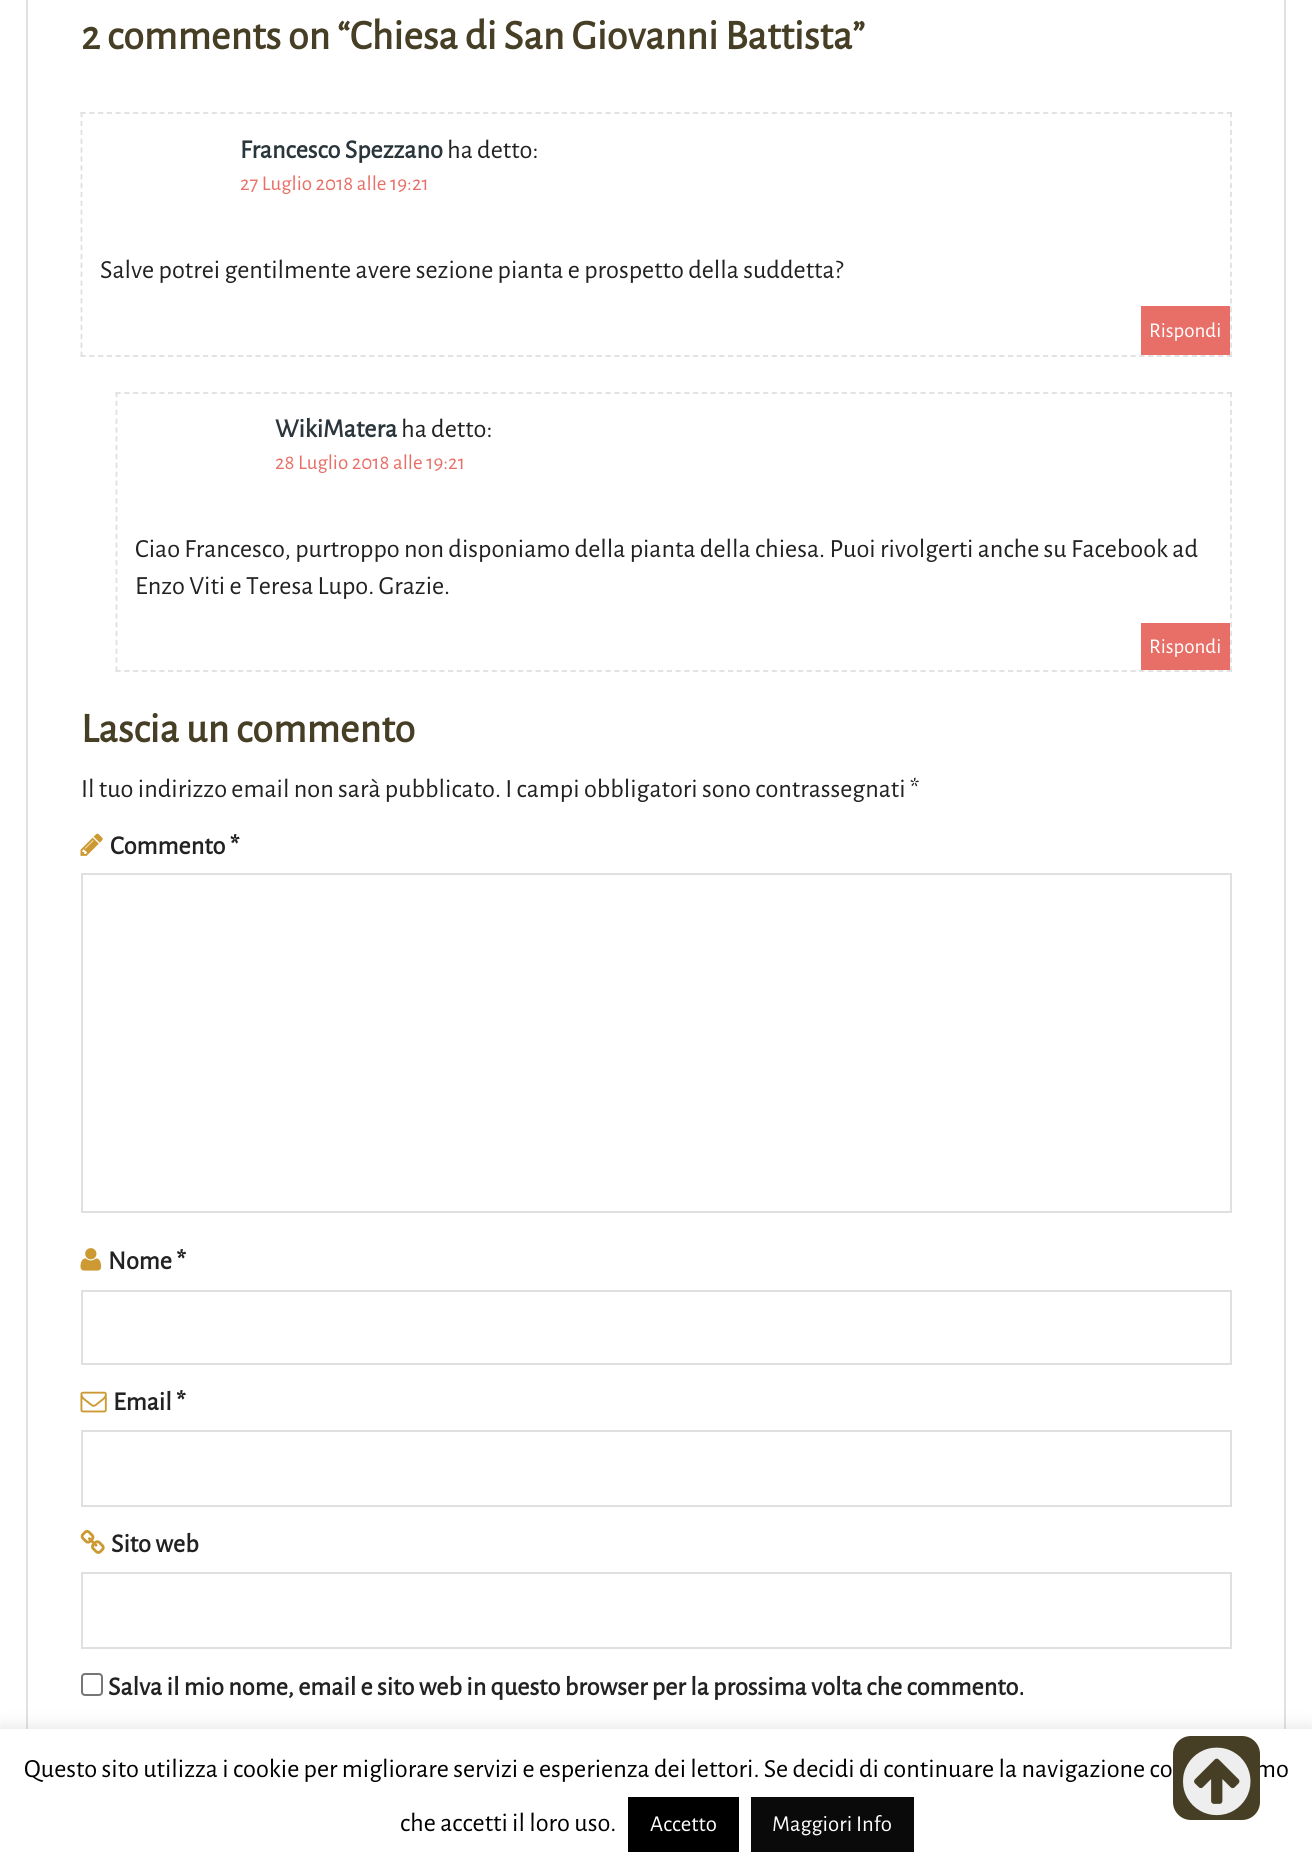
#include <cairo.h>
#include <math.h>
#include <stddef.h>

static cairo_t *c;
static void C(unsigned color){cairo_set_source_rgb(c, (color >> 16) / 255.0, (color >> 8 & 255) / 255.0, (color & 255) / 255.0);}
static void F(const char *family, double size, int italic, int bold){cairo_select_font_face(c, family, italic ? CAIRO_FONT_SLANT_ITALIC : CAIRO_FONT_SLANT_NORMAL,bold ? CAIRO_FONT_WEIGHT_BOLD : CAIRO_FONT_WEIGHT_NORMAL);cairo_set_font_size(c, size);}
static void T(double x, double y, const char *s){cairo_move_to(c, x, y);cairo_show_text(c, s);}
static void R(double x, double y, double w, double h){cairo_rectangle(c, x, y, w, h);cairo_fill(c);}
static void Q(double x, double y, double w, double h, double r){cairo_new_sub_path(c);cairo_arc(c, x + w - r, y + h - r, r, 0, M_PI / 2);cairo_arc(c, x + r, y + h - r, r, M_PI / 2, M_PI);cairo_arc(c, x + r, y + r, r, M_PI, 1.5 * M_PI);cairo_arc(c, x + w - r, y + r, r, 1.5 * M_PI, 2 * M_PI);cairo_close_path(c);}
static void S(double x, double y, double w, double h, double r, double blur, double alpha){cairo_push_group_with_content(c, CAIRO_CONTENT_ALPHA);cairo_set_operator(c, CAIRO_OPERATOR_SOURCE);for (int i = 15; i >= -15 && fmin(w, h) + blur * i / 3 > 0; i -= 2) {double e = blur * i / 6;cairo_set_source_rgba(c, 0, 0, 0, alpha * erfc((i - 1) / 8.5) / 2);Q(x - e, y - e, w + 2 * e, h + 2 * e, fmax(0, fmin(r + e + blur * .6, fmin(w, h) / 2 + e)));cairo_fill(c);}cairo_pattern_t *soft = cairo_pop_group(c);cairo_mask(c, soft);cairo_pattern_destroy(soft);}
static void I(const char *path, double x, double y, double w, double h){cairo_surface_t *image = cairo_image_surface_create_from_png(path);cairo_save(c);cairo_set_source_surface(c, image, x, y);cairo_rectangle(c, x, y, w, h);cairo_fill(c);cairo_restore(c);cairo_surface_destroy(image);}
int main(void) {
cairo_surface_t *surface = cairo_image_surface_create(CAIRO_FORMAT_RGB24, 1312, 1872);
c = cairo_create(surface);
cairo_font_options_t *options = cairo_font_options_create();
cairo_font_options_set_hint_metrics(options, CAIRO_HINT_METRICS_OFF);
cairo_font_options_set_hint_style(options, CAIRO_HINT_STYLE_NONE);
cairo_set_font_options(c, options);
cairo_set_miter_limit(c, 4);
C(0xffffff);
cairo_paint(c);
cairo_rectangle(c,27,-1,1258,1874);
C(0xe0e0e0);
cairo_stroke(c);
F("Alegreya Sans",42,0,1);
C(0x463f25);
T(81,49,"2 comments on “Chiesa di San Giovanni Battista”");
cairo_new_path(c);
cairo_move_to(c,80.5,113);
cairo_line_to(c,1232,113);
C(0xe0e0e0);
cairo_set_line_width(c,1.8);
cairo_set_dash(c,(double[]){5.25,3.5},2,0);
cairo_stroke(c);
cairo_new_path(c);
cairo_move_to(c,1231,112);
cairo_line_to(c,1231,357);
cairo_set_dash(c,(double[]){5.25,3.62},2,0);
cairo_stroke(c);
cairo_new_path(c);
cairo_move_to(c,80.5,356);
cairo_line_to(c,1232,356);
cairo_set_dash(c,(double[]){5.25,3.5},2,0);
cairo_stroke(c);
cairo_new_path(c);
cairo_move_to(c,81.5,112);
cairo_line_to(c,81.5,357);
cairo_set_dash(c,(double[]){5.25,3.62},2,0);
cairo_stroke(c);
F("Alegreya Sans",26.25,0,1);
C(0x2a363b);
T(240,158,"Francesco Spezzano");
F("Alegreya Sans",26.25,0,0);
C(0x222222);
T(447,158,"ha detto:");
F("Alegreya Sans",21,0,0);
C(0xe86f67);
T(240,190,"27 Luglio 2018 alle 19:21");
F("Alegreya Sans",26.25,0,0);
C(0x222222);
T(100,278,"Salve potrei gentilmente avere sezione pianta e prospetto della suddetta?");
C(0xe86f67);
R(1141,306,89,49);
F("Alegreya Sans",21,0,0);
C(0xffffff);
T(1149,337,"Rispondi");
cairo_new_path(c);
cairo_move_to(c,115.5,393);
cairo_line_to(c,1232,393);
C(0xe0e0e0);
cairo_set_dash(c,(double[]){5.25,3.5},2,0);
cairo_stroke(c);
cairo_new_path(c);
cairo_move_to(c,1231,392);
cairo_line_to(c,1231,672);
cairo_set_dash(c,(double[]){5.25,3.6},2,0);
cairo_stroke(c);
cairo_new_path(c);
cairo_move_to(c,115.5,671);
cairo_line_to(c,1232,671);
cairo_set_dash(c,(double[]){5.25,3.5},2,0);
cairo_stroke(c);
cairo_new_path(c);
cairo_move_to(c,116.5,392);
cairo_line_to(c,116.5,672);
cairo_set_dash(c,(double[]){5.25,3.6},2,0);
cairo_stroke(c);
F("Alegreya Sans",26.25,0,1);
C(0x2a363b);
T(275,437,"WikiMatera");
F("Alegreya Sans",26.25,0,0);
C(0x222222);
T(401,437,"ha detto:");
F("Alegreya Sans",21,0,0);
C(0xe86f67);
T(275,469,"28 Luglio 2018 alle 19:21");
F("Alegreya Sans",26.25,0,0);
C(0x222222);
T(135,557,"Ciao Francesco, purtroppo non disponiamo della pianta della chiesa. Puoi rivolgerti anche su Facebook ad");
T(135,594,"Enzo Viti e Teresa Lupo. Grazie.");
C(0xe86f67);
R(1141,623,89,47);
F("Alegreya Sans",21,0,0);
C(0xffffff);
T(1149,653,"Rispondi");
F("Alegreya Sans",42,0,1);
C(0x463f25);
T(81,742,"Lascia un commento");
F("Alegreya Sans",26.25,0,0);
C(0x222222);
T(81,797,"Il tuo indirizzo email non sarà pubblicato. I campi obbligatori sono contrassegnati *");
I("1.png",80,833,23,23);
F("Alegreya Sans",26.25,0,1);
T(110,854,"Commento *");
cairo_rectangle(c,82,874,1149,338);
C(0xe0e0e0);
cairo_set_line_width(c,2);
cairo_set_dash(c,NULL,0,0);
cairo_stroke(c);
I("2.png",80,1248,22,23);
C(0x222222);
T(108,1269,"Nome *");
cairo_rectangle(c,82,1291,1149,73);
C(0xe0e0e0);
cairo_stroke(c);
I("3.png",80,1391,27,22);
C(0x222222);
T(113,1410,"Email *");
cairo_rectangle(c,82,1431,1149,75);
C(0xe0e0e0);
cairo_stroke(c);
I("4.png",80,1530,25,24);
C(0x222222);
T(111,1552,"Sito web");
cairo_rectangle(c,82,1573,1149,75);
C(0xe0e0e0);
cairo_stroke(c);
Q(82,1674,20,21,3);
C(0x767676);
cairo_stroke(c);
C(0x222222);
T(108,1695,"Salva il mio nome, email e sito web in questo browser per la prossima volta che commento.");
C(0xacabab);
S(0,1727,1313,144,0,9,.3);
C(0xffffff);
R(0,1729,1312,143);
F("Alegreya Sans",26.25,0,0);
C(0x000000);
T(1255,1777,"mo");
C(0x463f25);
Q(1173,1736,87,84,18);
cairo_fill(c);
I("5.png",1183,1747,68,69);
C(0x000000);
T(24,1777,"Questo sito utilizza i cookie per migliorare servizi e esperienza dei lettori. Se decidi di continuare la navigazione co");
T(400,1831,"che accetti il loro uso.");
R(628,1797,111,55);
F("Alegreya Sans",22.75,0,0);
C(0xffffff);
T(650,1831,"Accetto");
C(0x0a0a0a);
R(751,1797,163,55);
C(0xffffff);
T(772,1831,"Maggiori Info");
cairo_surface_write_to_png(surface, "o.png");
cairo_font_options_destroy(options);
cairo_destroy(c);
cairo_surface_destroy(surface);
return 0;
}
